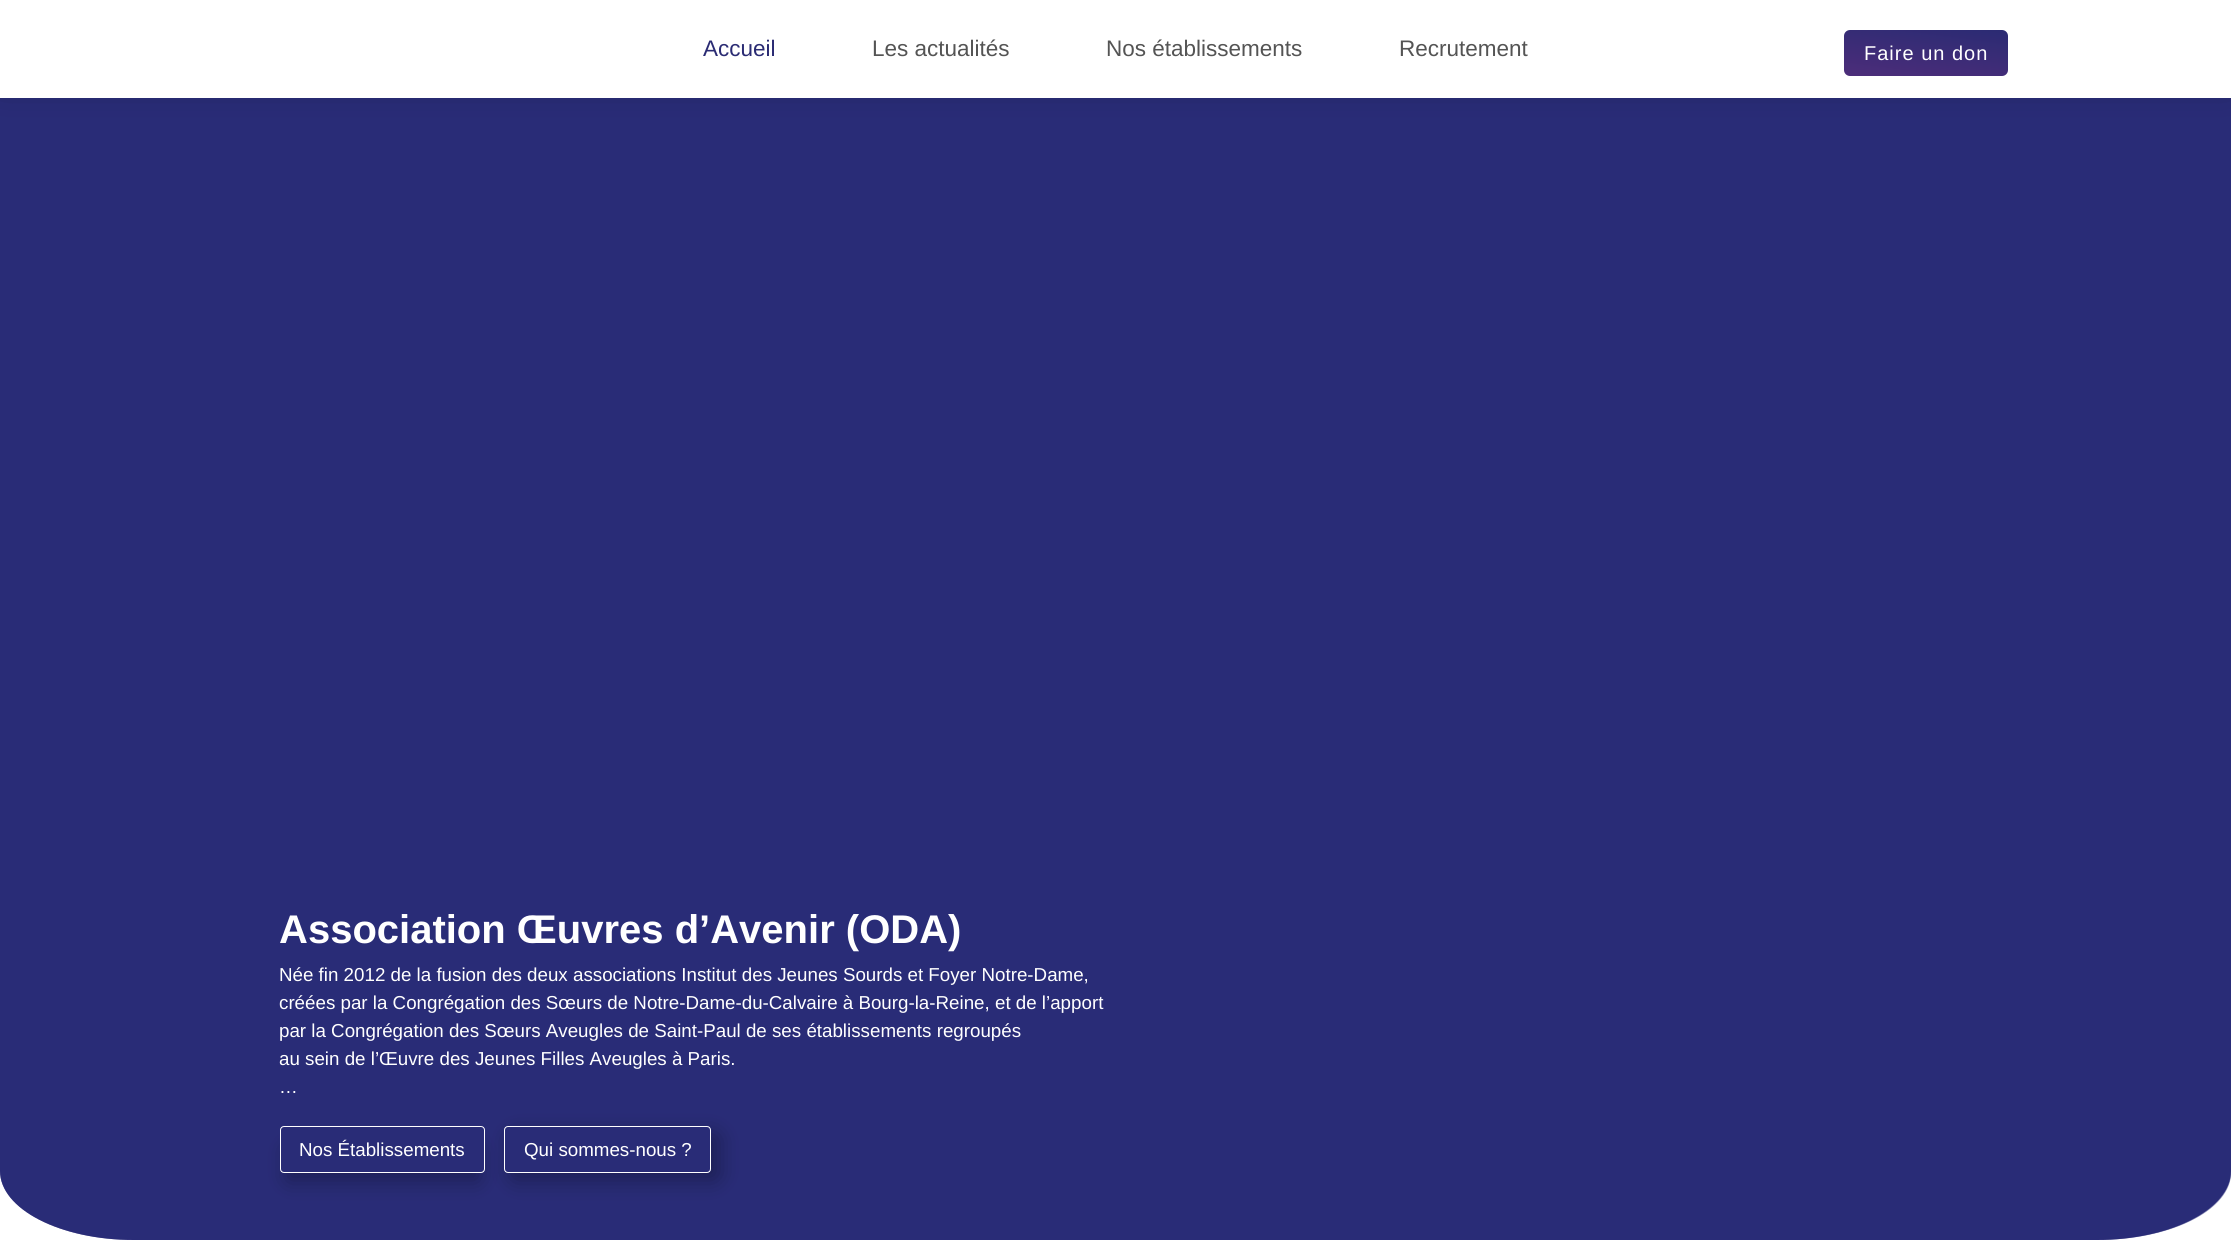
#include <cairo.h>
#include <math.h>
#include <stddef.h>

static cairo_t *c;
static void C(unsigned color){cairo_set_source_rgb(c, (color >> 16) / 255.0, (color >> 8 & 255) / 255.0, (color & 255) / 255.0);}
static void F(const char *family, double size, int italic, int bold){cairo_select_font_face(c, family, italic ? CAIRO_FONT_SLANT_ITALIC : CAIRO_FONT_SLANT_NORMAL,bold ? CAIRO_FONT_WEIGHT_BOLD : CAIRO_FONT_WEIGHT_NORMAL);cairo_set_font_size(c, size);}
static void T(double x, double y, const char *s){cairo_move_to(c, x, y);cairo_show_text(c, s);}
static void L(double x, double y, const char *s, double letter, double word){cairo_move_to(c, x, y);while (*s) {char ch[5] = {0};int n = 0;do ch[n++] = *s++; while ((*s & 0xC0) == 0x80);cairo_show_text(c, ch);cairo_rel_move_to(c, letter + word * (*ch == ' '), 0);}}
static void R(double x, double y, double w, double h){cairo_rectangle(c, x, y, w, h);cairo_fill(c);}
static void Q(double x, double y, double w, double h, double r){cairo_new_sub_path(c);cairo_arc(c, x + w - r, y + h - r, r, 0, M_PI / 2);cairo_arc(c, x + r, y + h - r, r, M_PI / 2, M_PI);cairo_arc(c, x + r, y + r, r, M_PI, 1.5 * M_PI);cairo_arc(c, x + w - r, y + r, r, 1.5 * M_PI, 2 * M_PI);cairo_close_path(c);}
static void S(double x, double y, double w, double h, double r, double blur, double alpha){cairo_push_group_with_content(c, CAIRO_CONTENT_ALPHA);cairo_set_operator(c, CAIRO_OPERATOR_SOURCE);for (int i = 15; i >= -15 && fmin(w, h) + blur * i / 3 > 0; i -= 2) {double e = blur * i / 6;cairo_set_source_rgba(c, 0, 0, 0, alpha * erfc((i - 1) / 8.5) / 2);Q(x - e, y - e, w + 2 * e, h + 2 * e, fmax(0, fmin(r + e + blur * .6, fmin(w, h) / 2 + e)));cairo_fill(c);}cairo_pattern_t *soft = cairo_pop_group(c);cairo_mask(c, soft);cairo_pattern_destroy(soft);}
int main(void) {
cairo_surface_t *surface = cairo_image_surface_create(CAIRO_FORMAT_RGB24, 2231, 1240);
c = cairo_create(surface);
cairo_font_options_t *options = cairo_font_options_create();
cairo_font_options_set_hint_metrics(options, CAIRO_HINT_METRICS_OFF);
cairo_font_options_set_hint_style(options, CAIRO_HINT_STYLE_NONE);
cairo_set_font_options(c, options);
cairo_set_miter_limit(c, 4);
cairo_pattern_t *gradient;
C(0xffffff);
cairo_paint(c);
C(0x2a2b77);
cairo_new_path(c);
cairo_move_to(c,0,98);
cairo_line_to(c,2231,98);
cairo_line_to(c,2231,1171);
cairo_curve_to(c,2231,1209,2171,1240,2097,1240);
cairo_line_to(c,134,1240);
cairo_curve_to(c,60,1240,0,1209,0,1171);
cairo_close_path(c);
cairo_fill(c);
cairo_set_source_rgba(c,0.165,0.173,0.467,0.52);
cairo_new_path(c);
cairo_move_to(c,0,98);
cairo_line_to(c,0,1171);
cairo_curve_to(c,0,1209,60,1240,134,1240);
cairo_line_to(c,2097,1240);
cairo_curve_to(c,2169,1240,2227,1212,2231,1176);
cairo_line_to(c,2231,98);
cairo_close_path(c);
cairo_fill(c);
C(0x000000);
S(0,-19,2231,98,0,21,.3);
C(0xffffff);
R(0,0,2231,98);
F("Liberation Sans",22.5,0,0);
C(0x2a2b73);
T(703,56,"Accueil");
C(0x545454);
T(872,56,"Les actualités");
T(1106,56,"Nos établissements");
T(1399,56,"Recrutement");
gradient = cairo_pattern_create_linear(1930,19,1921,87);
cairo_pattern_add_color_stop_rgba(gradient,0,0.165,0.169,0.451,1);
cairo_pattern_add_color_stop_rgba(gradient,1,0.302,0.176,0.478,1);
cairo_set_source(c,gradient);
cairo_pattern_destroy(gradient);
Q(1844,30,164,46,6);
cairo_fill(c);
F("Liberation Sans",20,0,0);
C(0xffffff);
L(1864,60,"Faire un don",1,0);
F("Liberation Sans",40,0,1);
T(279,943,"Association Œuvres d’Avenir (ODA)");
F("Liberation Sans",18.75,0,0);
T(279,981,"Née fin 2012 de la fusion des deux associations Institut des Jeunes Sourds et Foyer Notre-Dame,");
T(279,1009,"créées par la Congrégation des Sœurs de Notre-Dame-du-Calvaire à Bourg-la-Reine, et de l’apport");
T(279,1037,"par la Congrégation des Sœurs Aveugles de Saint-Paul de ses établissements regroupés");
T(279,1065,"au sein de l’Œuvre des Jeunes Filles Aveugles à Paris.");
T(279,1093,"…");
cairo_save(c);
cairo_set_fill_rule(c,CAIRO_FILL_RULE_EVEN_ODD);
cairo_new_path(c);
cairo_move_to(c,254,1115);
cairo_line_to(c,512,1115);
cairo_line_to(c,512,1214);
cairo_line_to(c,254,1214);
cairo_close_path(c);
cairo_move_to(c,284,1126);
cairo_line_to(c,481,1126);
cairo_curve_to(c,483,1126,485,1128,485,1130);
cairo_line_to(c,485,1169);
cairo_curve_to(c,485,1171,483,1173,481,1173);
cairo_line_to(c,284,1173);
cairo_curve_to(c,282,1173,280,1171,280,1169);
cairo_line_to(c,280,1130);
cairo_curve_to(c,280,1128,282,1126,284,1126);
cairo_close_path(c);
cairo_clip(c);
C(0x000000);
S(288,1149,190,31,0,11,.3);
cairo_restore(c);
Q(280.5,1126.5,204,46,3.5);
cairo_set_line_width(c,1);
cairo_stroke(c);
T(299,1156,"Nos Établissements");
cairo_save(c);
cairo_set_fill_rule(c,CAIRO_FILL_RULE_EVEN_ODD);
cairo_new_path(c);
cairo_move_to(c,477,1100);
cairo_line_to(c,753,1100);
cairo_line_to(c,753,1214);
cairo_line_to(c,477,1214);
cairo_close_path(c);
cairo_move_to(c,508,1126);
cairo_line_to(c,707,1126);
cairo_curve_to(c,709,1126,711,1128,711,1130);
cairo_line_to(c,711,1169);
cairo_curve_to(c,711,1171,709,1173,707,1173);
cairo_line_to(c,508,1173);
cairo_curve_to(c,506,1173,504,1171,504,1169);
cairo_line_to(c,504,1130);
cairo_curve_to(c,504,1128,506,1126,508,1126);
cairo_close_path(c);
cairo_clip(c);
C(0x000000);
S(511,1134,208,46,4,11,.3);
cairo_restore(c);
Q(504.5,1126.5,206,46,3.5);
cairo_stroke(c);
T(524,1156,"Qui sommes-nous ?");
cairo_surface_write_to_png(surface, "o.png");
cairo_font_options_destroy(options);
cairo_destroy(c);
cairo_surface_destroy(surface);
return 0;
}
